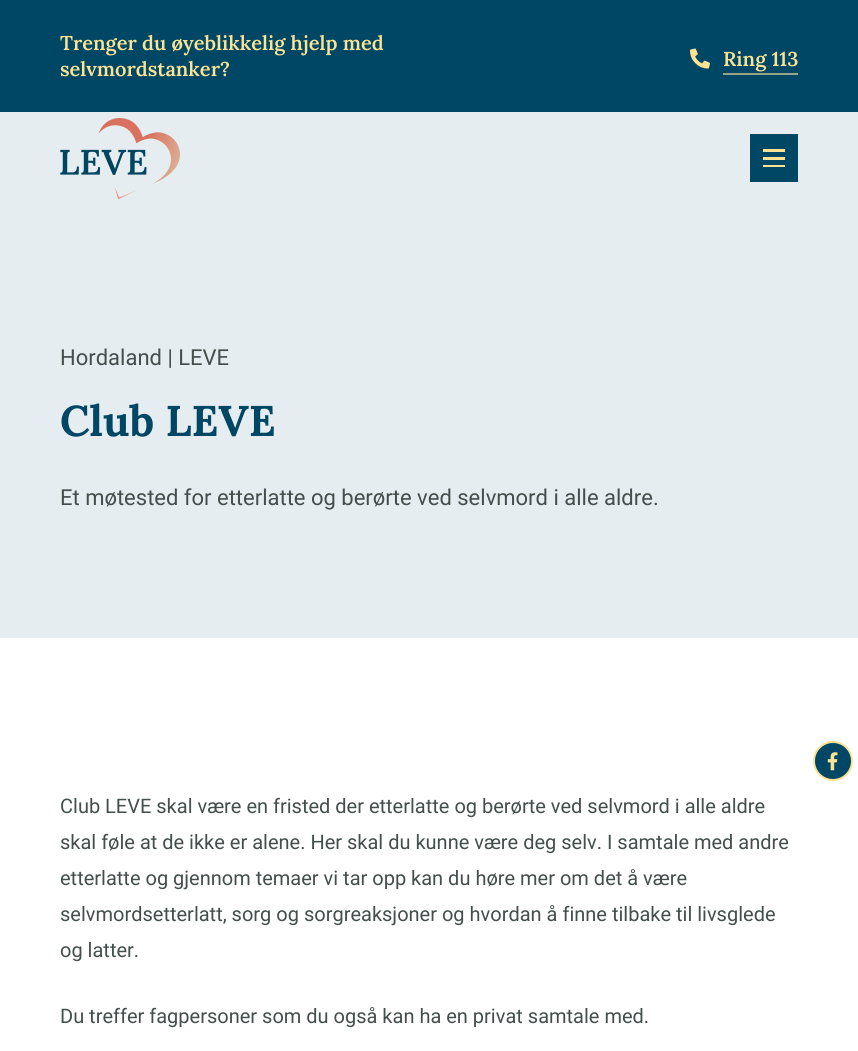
#include <cairo.h>
#include <math.h>
#include <stddef.h>

static cairo_t *c;
static void C(unsigned color){cairo_set_source_rgb(c, (color >> 16) / 255.0, (color >> 8 & 255) / 255.0, (color & 255) / 255.0);}
static void F(const char *family, double size, int italic, int bold){cairo_select_font_face(c, family, italic ? CAIRO_FONT_SLANT_ITALIC : CAIRO_FONT_SLANT_NORMAL,bold ? CAIRO_FONT_WEIGHT_BOLD : CAIRO_FONT_WEIGHT_NORMAL);cairo_set_font_size(c, size);}
static void T(double x, double y, const char *s){cairo_move_to(c, x, y);cairo_show_text(c, s);}
static void R(double x, double y, double w, double h){cairo_rectangle(c, x, y, w, h);cairo_fill(c);}
static void I(const char *path, double x, double y, double w, double h){cairo_surface_t *image = cairo_image_surface_create_from_png(path);cairo_save(c);cairo_set_source_surface(c, image, x, y);cairo_rectangle(c, x, y, w, h);cairo_fill(c);cairo_restore(c);cairo_surface_destroy(image);}
int main(void) {
cairo_surface_t *surface = cairo_image_surface_create(CAIRO_FORMAT_RGB24, 858, 1051);
c = cairo_create(surface);
cairo_font_options_t *options = cairo_font_options_create();
cairo_font_options_set_hint_metrics(options, CAIRO_HINT_METRICS_OFF);
cairo_font_options_set_hint_style(options, CAIRO_HINT_STYLE_NONE);
cairo_set_font_options(c, options);
cairo_set_miter_limit(c, 4);
C(0xffffff);
cairo_paint(c);
C(0x004665);
R(0,0,858,112);
F("Lora SemiBold",20,0,0);
C(0xfbe394);
T(60,50,"Trenger du øyeblikkelig hjelp med");
T(60,76,"selvmordstanker?");
I("1.png",690,48,20,21);
T(723,66,"Ring 113");
C(0x97a481);
R(723,73,75,2);
C(0xe6edf0);
R(0,112,858,526);
I("2.png",60,118,120,81);
C(0x004665);
R(750,134,48,48);
C(0xfbe394);
R(763,149,22,3);
R(763,157,22,3);
R(763,165,22,2);
F("Roboto",22,0,0);
C(0x444e4c);
T(60,365,"Hordaland | LEVE");
F("Lora",43,0,1);
C(0x004665);
T(60,436,"Club LEVE");
F("Roboto",22,0,0);
C(0x444e4c);
T(60,505,"Et møtested for etterlatte og berørte ved selvmord i alle aldre.");
F("Roboto",20,0,0);
T(60,813,"Club LEVE skal være en fristed der etterlatte og berørte ved selvmord i alle aldre");
T(60,849,"skal føle at de ikke er alene. Her skal du kunne være deg selv. I samtale med andre");
T(60,885,"etterlatte og gjennom temaer vi tar opp kan du høre mer om det å være");
T(60,921,"selvmordsetterlatt, sorg og sorgreaksjoner og hvordan å finne tilbake til livsglede");
T(60,957,"og latter.");
T(60,1023,"Du treffer fagpersoner som du også kan ha en privat samtale med.");
C(0x004665);
cairo_new_path(c);
cairo_arc(c,833,761,19,0,2 * M_PI);
cairo_fill_preserve(c);
C(0xfbe394);
cairo_stroke(c);
I("3.png",827,752,11,19);
cairo_surface_write_to_png(surface, "o.png");
cairo_font_options_destroy(options);
cairo_destroy(c);
cairo_surface_destroy(surface);
return 0;
}
